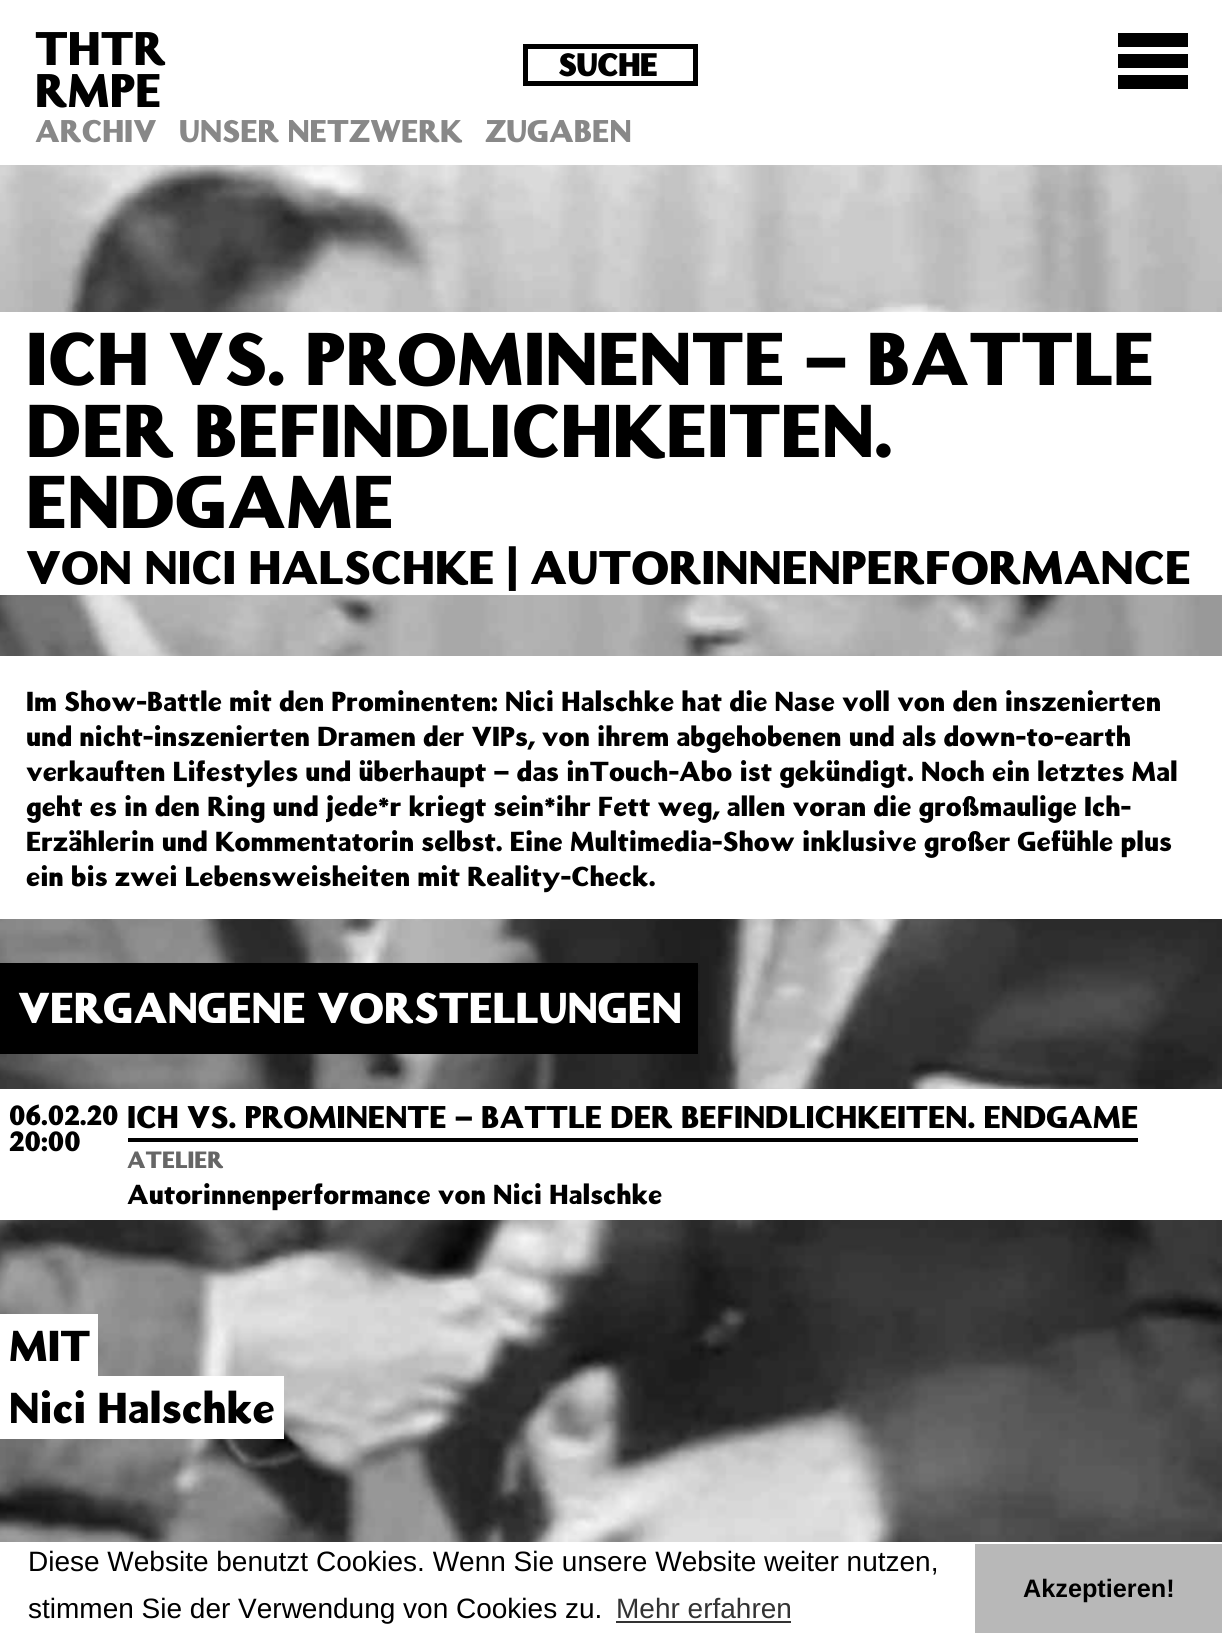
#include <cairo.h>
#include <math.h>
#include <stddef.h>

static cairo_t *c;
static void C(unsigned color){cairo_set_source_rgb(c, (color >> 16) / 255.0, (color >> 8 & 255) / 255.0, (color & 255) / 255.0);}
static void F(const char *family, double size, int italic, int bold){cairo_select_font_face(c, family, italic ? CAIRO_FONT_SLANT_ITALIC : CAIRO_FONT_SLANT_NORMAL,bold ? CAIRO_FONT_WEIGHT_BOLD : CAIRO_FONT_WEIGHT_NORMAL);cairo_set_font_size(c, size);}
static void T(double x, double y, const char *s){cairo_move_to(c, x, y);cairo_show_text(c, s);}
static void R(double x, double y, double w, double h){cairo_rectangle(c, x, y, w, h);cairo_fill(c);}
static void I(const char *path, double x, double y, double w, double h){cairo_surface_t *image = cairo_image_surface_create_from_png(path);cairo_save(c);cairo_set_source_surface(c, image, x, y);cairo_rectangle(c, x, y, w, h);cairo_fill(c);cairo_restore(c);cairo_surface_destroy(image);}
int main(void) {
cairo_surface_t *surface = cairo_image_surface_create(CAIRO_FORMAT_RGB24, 1222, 1636);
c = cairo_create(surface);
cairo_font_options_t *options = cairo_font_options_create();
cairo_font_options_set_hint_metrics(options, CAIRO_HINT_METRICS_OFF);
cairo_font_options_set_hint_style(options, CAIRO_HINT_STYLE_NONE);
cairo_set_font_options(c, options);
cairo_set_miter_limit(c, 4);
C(0xffffff);
cairo_paint(c);
F("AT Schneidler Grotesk",42,0,0);
C(0x000000);
T(35,65,"THTR");
T(35,107,"RMPE");
cairo_rectangle(c,525.5,46.5,170,37);
cairo_set_line_width(c,5);
cairo_stroke(c);
F("AT Schneidler Grotesk",28,0,1);
T(558,76,"SUCHE");
R(1118,33,70,14);
R(1118,54,70,14);
R(1118,75,70,14);
F("AT Schneidler Grotesk",28,0,0);
C(0x888888);
T(35,142,"ARCHIV");
T(179,142,"UNSER NETZWERK");
T(485,142,"ZUGABEN");
I("1.png",0,165,1222,1377);
C(0xffffff);
R(0,312,1222,283);
F("AT Schneidler Grotesk",66.5,0,0);
C(0x000000);
T(26,385,"ICH VS. PROMINENTE – BATTLE");
T(26,457,"DER BEFINDLICHKEITEN.");
T(26,528,"ENDGAME");
F("AT Schneidler Grotesk",42,0,0);
T(26,584,"VON NICI HALSCHKE | AUTORINNENPERFORMANCE");
C(0xffffff);
R(0,656,1222,263);
F("AT Schneidler Grotesk",24.5,0,0);
C(0x000000);
T(26,711,"Im Show-Battle mit den Prominenten: Nici Halschke hat die Nase voll von den inszenierten");
T(26,746,"und nicht-inszenierten Dramen der VIPs, von ihrem abgehobenen und als down-to-earth");
T(26,781,"verkauften Lifestyles und überhaupt – das inTouch-Abo ist gekündigt. Noch ein letztes Mal");
T(26,816,"geht es in den Ring und jede*r kriegt sein*ihr Fett weg, allen voran die großmaulige Ich-");
T(26,851,"Erzählerin und Kommentatorin selbst. Eine Multimedia-Show inklusive großer Gefühle plus");
T(26,886,"ein bis zwei Lebensweisheiten mit Reality-Check.");
R(0,963,698,91);
F("AT Schneidler Grotesk",38.5,0,0);
C(0xffffff);
T(18,1023,"VERGANGENE VORSTELLUNGEN");
R(0,1089,1222,131);
F("AT Schneidler Grotesk",24.5,0,0);
C(0x000000);
T(9,1125,"06.02.20");
T(9,1151,"20:00");
R(128,1138,1010,4);
F("AT Schneidler Grotesk",28,0,0);
T(127,1128,"ICH VS. PROMINENTE – BATTLE DER BEFINDLICHKEITEN. ENDGAME");
F("AT Schneidler Grotesk",21,0,0);
C(0x666666);
T(127,1168,"ATELIER");
F("AT Schneidler Grotesk",24.5,0,0);
C(0x000000);
T(127,1204,"Autorinnenperformance von Nici Halschke");
C(0xffffff);
R(0,1314,98,62);
F("AT Schneidler Grotesk",38.5,0,0);
C(0x000000);
T(9,1361,"MIT");
C(0xffffff);
R(0,1376,284,63);
C(0x000000);
T(9,1423,"Nici Halschke");
F("Liberation Sans",28,0,0);
T(28,1571,"Diese Website benutzt Cookies. Wenn Sie unsere Website weiter nutzen,");
T(28,1618,"stimmen Sie der Verwendung von Cookies zu.");
C(0x333333);
T(616,1618,"Mehr erfahren");
R(616,1621,175,2);
C(0xb8b8b8);
R(975,1544,247,89);
F("Liberation Sans",25.25,0,1);
C(0x000000);
T(1023,1597,"Akzeptieren!");
cairo_surface_write_to_png(surface, "o.png");
cairo_font_options_destroy(options);
cairo_destroy(c);
cairo_surface_destroy(surface);
return 0;
}
